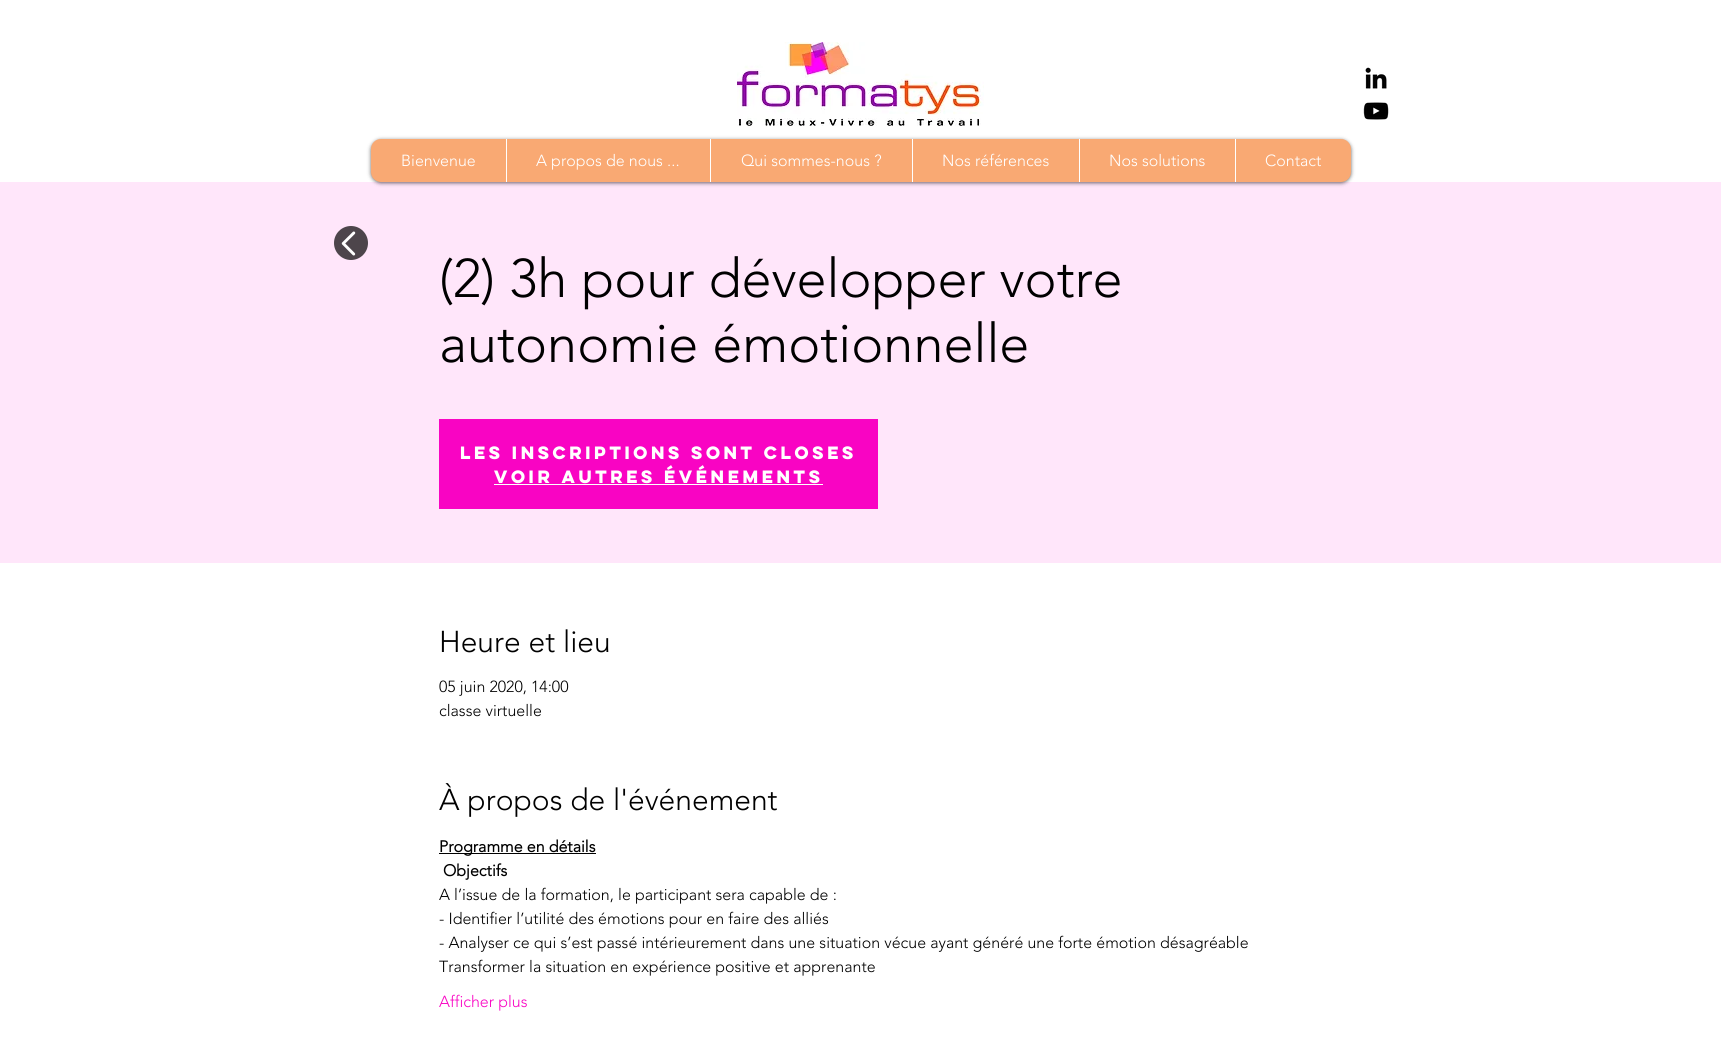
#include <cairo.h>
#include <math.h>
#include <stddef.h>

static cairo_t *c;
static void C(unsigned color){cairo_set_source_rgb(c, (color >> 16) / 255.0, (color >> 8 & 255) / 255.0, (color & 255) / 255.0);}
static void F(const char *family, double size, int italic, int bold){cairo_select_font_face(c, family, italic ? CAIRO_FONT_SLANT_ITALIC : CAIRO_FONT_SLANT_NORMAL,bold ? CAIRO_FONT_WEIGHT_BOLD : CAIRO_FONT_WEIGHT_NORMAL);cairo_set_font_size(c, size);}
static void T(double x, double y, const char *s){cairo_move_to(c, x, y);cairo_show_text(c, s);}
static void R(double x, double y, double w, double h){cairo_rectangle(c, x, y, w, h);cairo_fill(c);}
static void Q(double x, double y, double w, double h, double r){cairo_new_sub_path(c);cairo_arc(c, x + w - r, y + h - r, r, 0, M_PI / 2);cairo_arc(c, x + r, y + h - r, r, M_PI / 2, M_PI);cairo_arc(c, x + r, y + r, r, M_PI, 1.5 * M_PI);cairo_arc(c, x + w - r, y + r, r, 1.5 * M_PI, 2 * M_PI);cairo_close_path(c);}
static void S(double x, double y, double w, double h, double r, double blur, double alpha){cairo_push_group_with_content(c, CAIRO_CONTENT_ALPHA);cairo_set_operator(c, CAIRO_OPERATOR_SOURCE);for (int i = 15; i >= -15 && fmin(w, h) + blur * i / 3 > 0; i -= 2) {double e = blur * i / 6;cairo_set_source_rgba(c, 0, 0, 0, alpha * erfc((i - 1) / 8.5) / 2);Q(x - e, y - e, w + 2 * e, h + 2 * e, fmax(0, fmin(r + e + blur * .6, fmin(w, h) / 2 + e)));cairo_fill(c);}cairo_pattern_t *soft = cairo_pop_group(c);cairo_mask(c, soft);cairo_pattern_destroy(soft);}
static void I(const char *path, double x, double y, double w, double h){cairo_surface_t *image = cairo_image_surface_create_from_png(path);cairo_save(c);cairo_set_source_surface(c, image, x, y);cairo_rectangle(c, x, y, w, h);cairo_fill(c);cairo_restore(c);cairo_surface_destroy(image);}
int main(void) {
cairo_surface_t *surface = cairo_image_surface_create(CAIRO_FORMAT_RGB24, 1721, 1039);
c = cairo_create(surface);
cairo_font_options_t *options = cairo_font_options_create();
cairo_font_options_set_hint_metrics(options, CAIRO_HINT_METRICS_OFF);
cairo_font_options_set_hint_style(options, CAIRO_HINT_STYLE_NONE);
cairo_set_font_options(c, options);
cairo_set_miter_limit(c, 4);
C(0xffffff);
cairo_paint(c);
I("1.png",737,42,247,84);
I("2.png",1365,67,22,22);
I("3.png",1363,102,26,18);
C(0xffe6fa);
R(0,182,1721,381);
C(0x000000);
S(371,140,980,43,10,2,.6);
C(0xf9a973);
Q(371,139,980,43,10);
cairo_fill(c);
F("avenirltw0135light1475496 Light",16,0,0);
C(0xffffff);
T(401,166,"Bienvenue");
R(506,139,1,43);
T(536,166,"A propos de nous ...");
R(710,139,1,43);
T(741,166,"Qui sommes-nous ?");
R(912,139,1,43);
T(942,166,"Nos références");
R(1079,139,1,43);
T(1109,166,"Nos solutions");
R(1235,139,1,43);
T(1265,166,"Contact");
I("4.png",334,226,34,34);
I("5.png",341,231,15,25);
F("avenirltw0135light1475496 Light",54,0,0);
C(0x000000);
T(439,297,"(2) 3h pour développer votre");
T(439,362,"autonomie émotionnelle");
C(0xf904c3);
R(439,419,439,90);
F("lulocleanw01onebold",16,0,1);
C(0xffffff);
T(460,459,"Les inscriptions sont closes");
T(494,483,"Voir autres événements");
R(494,484,329,1);
F("avenirltw0135light1475496 Light",30,0,0);
C(0x000000);
T(439,652,"Heure et lieu");
F("avenirltw0135light1475496 Light",16,0,0);
T(439,692,"05 juin 2020, 14:00");
T(439,716,"classe virtuelle");
F("avenirltw0135light1475496 Light",30,0,0);
T(439,810,"À propos de l'événement");
R(439,853,157,1);
F("avenirltw0135light1475496",16,0,1);
T(439,852,"Programme en détails");
T(443,876,"Objectifs");
F("avenirltw0135light1475496 Light",16,0,0);
T(439,900,"A l’issue de la formation, le participant sera capable de :");
T(439,924,"- Identifier l’utilité des émotions pour en faire des alliés");
T(439,948,"- Analyser ce qui s’est passé intérieurement dans une situation vécue ayant généré une forte émotion désagréable");
T(439,972,"Transformer la situation en expérience positive et apprenante");
C(0xf904c3);
T(439,1007,"Afficher plus");
cairo_surface_write_to_png(surface, "o.png");
cairo_font_options_destroy(options);
cairo_destroy(c);
cairo_surface_destroy(surface);
return 0;
}
